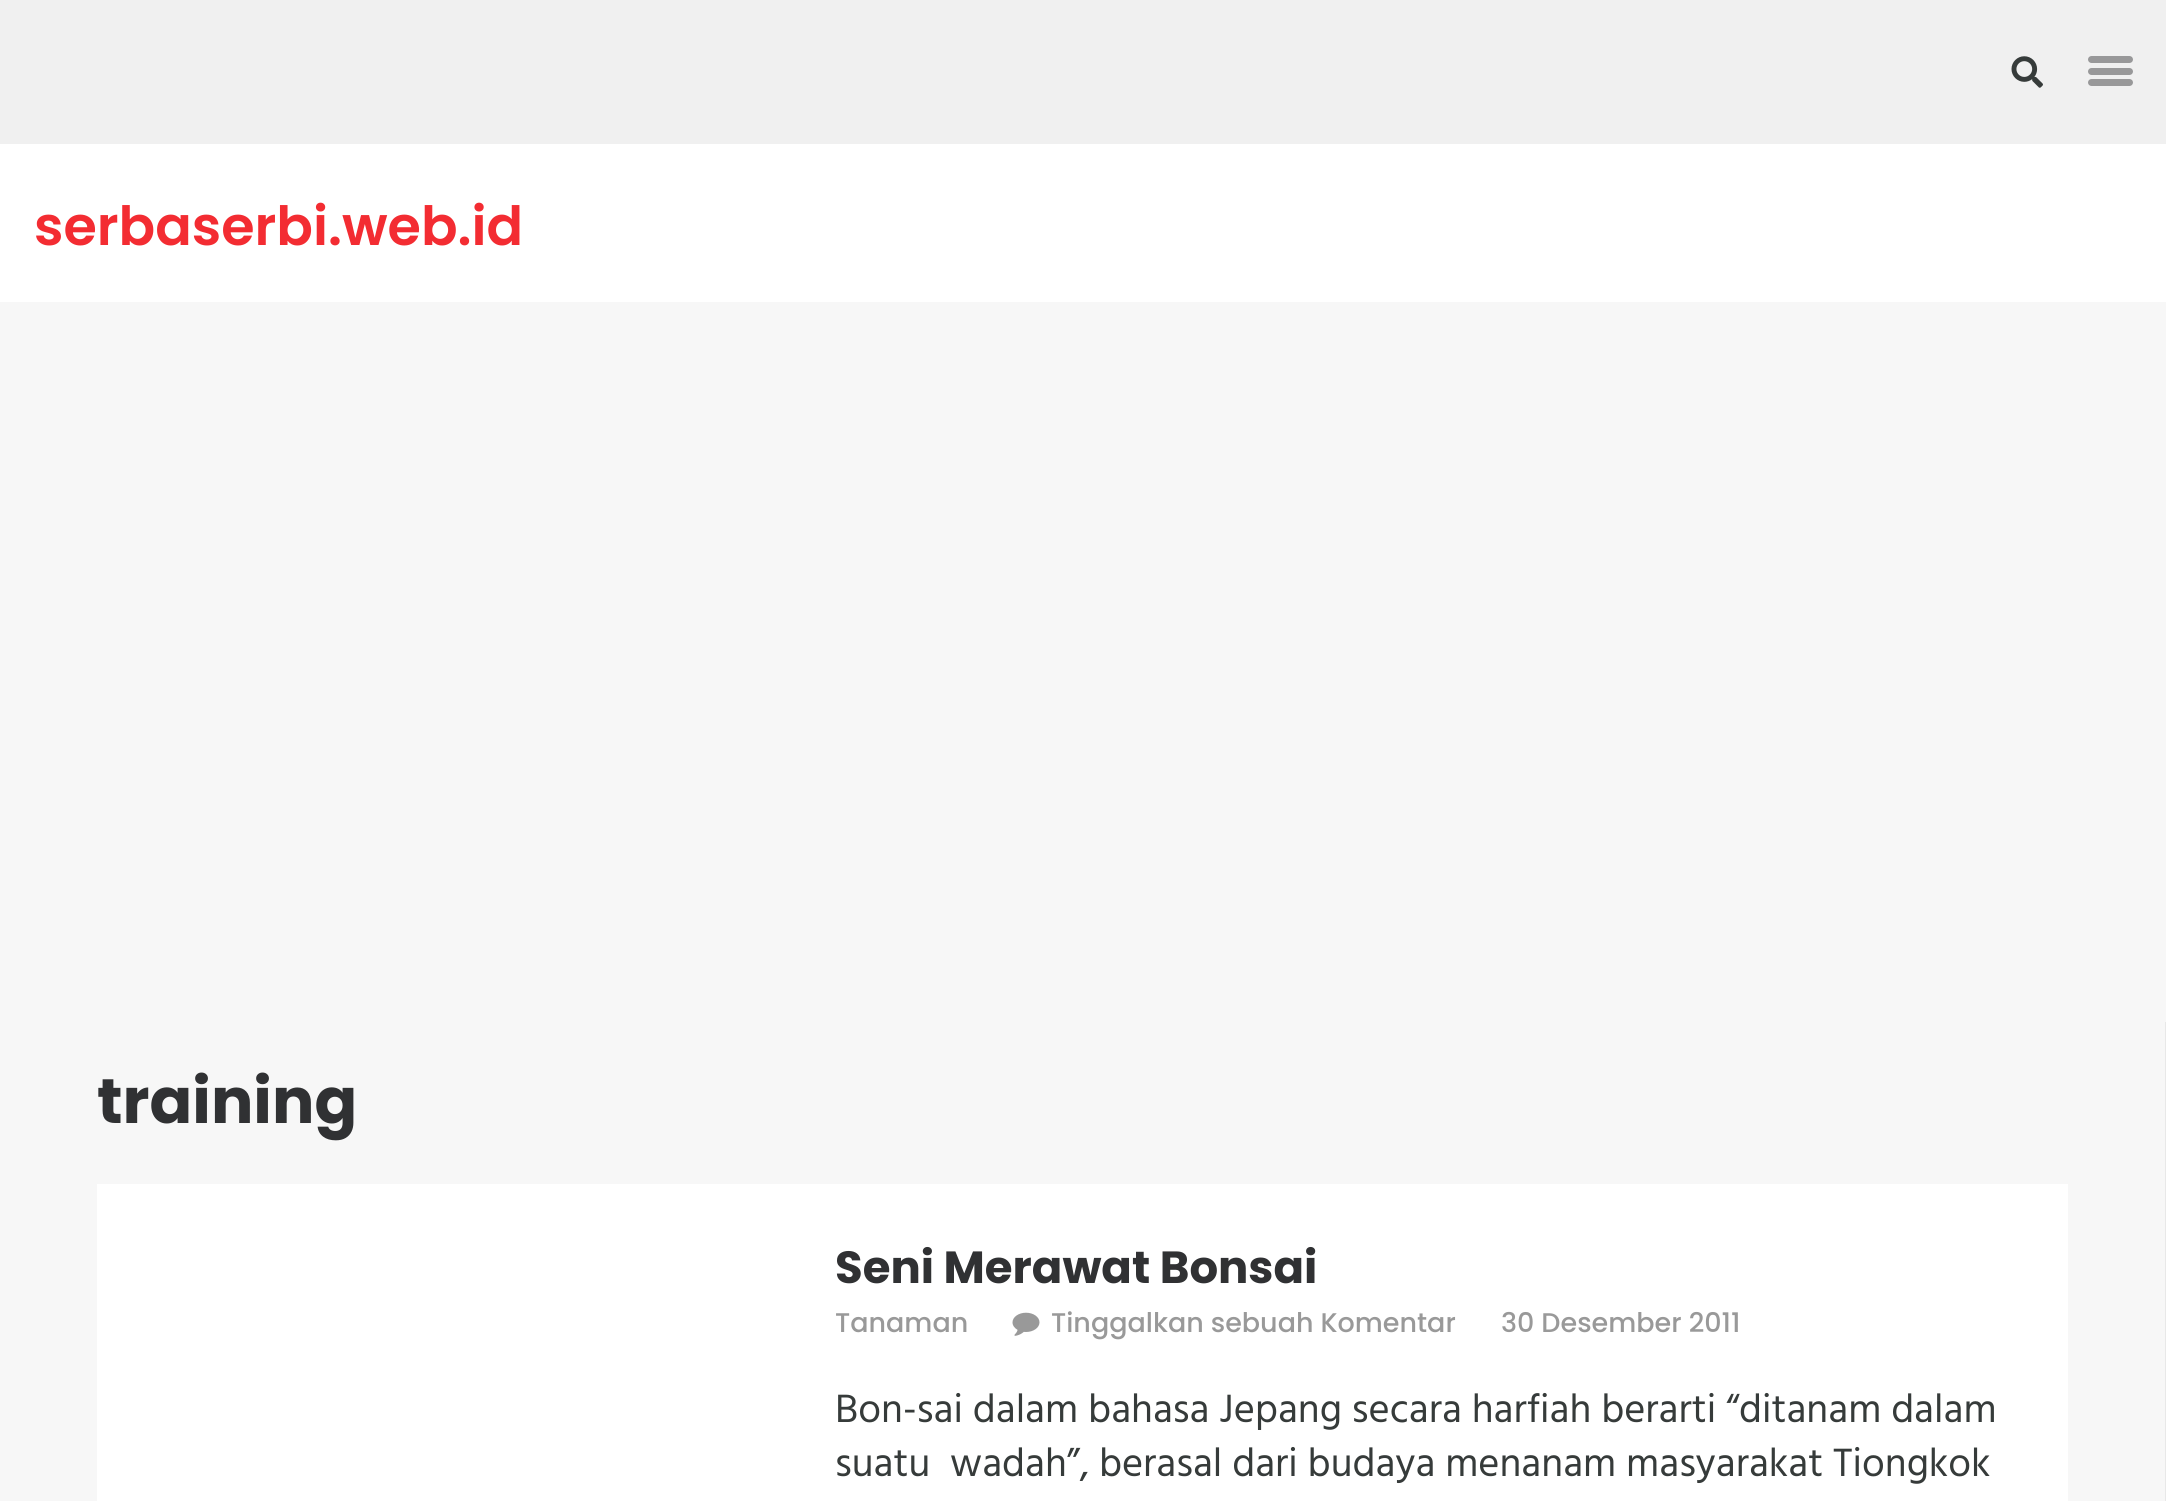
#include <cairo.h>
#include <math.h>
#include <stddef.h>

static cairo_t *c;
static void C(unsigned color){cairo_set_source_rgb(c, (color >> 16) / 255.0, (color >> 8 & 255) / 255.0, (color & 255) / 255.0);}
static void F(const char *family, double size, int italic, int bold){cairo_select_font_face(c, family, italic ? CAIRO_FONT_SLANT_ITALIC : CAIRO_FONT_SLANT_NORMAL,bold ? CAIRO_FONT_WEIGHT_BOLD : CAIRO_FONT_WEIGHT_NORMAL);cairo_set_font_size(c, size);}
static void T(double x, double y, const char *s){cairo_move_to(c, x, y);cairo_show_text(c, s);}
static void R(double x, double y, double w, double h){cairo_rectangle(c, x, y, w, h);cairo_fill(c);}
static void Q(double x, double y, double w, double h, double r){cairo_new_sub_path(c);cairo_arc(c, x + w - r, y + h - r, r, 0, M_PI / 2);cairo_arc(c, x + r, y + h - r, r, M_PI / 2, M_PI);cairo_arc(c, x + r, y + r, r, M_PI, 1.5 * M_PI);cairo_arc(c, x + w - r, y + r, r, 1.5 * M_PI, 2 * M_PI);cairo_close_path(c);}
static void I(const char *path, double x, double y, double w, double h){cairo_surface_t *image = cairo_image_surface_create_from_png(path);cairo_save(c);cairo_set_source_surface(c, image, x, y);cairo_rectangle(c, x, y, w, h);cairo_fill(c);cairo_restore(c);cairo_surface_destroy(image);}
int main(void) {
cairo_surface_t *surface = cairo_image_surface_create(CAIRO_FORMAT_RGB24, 2166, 1501);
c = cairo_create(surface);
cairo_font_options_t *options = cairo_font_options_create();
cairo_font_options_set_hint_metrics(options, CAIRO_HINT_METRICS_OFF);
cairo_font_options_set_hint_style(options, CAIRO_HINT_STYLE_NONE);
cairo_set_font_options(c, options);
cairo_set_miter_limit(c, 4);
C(0xf7f7f7);
cairo_paint(c);
C(0xf0f0f0);
R(0,0,2166,144);
I("1.png",2011,56,32,32);
C(0x989899);
Q(2088,56,45,7,3.5);
cairo_fill(c);
Q(2088,68,45,7,3.5);
cairo_fill(c);
Q(2088,79,45,7,3.5);
cairo_fill(c);
C(0xffffff);
R(0,144,2166,158);
F("Poppins SemiBold",54,0,0);
C(0xf32c32);
T(34,245,"serbaserbi.web.id");
C(0xe8e8e8);
R(2165,1022,1,479);
F("Poppins",63,0,1);
C(0x303133);
T(97,1123,"training");
C(0xffffff);
R(97,1184,1971,317);
F("Poppins",45,0,1);
C(0x303133);
T(835,1283,"Seni Merawat Bonsai");
F("Poppins Medium",27,0,0);
C(0x999999);
T(835,1332,"Tanaman");
I("2.png",1012,1312,28,24);
T(1051,1332,"Tinggalkan sebuah Komentar");
T(1501,1332,"30 Desember 2011");
F("Hind",40.5,0,0);
C(0x363b3a);
T(835,1422,"Bon-sai dalam bahasa Jepang secara harfiah berarti “ditanam dalam");
T(835,1476,"suatu  wadah”, berasal dari budaya menanam masyarakat Tiongkok");
cairo_surface_write_to_png(surface, "o.png");
cairo_font_options_destroy(options);
cairo_destroy(c);
cairo_surface_destroy(surface);
return 0;
}
